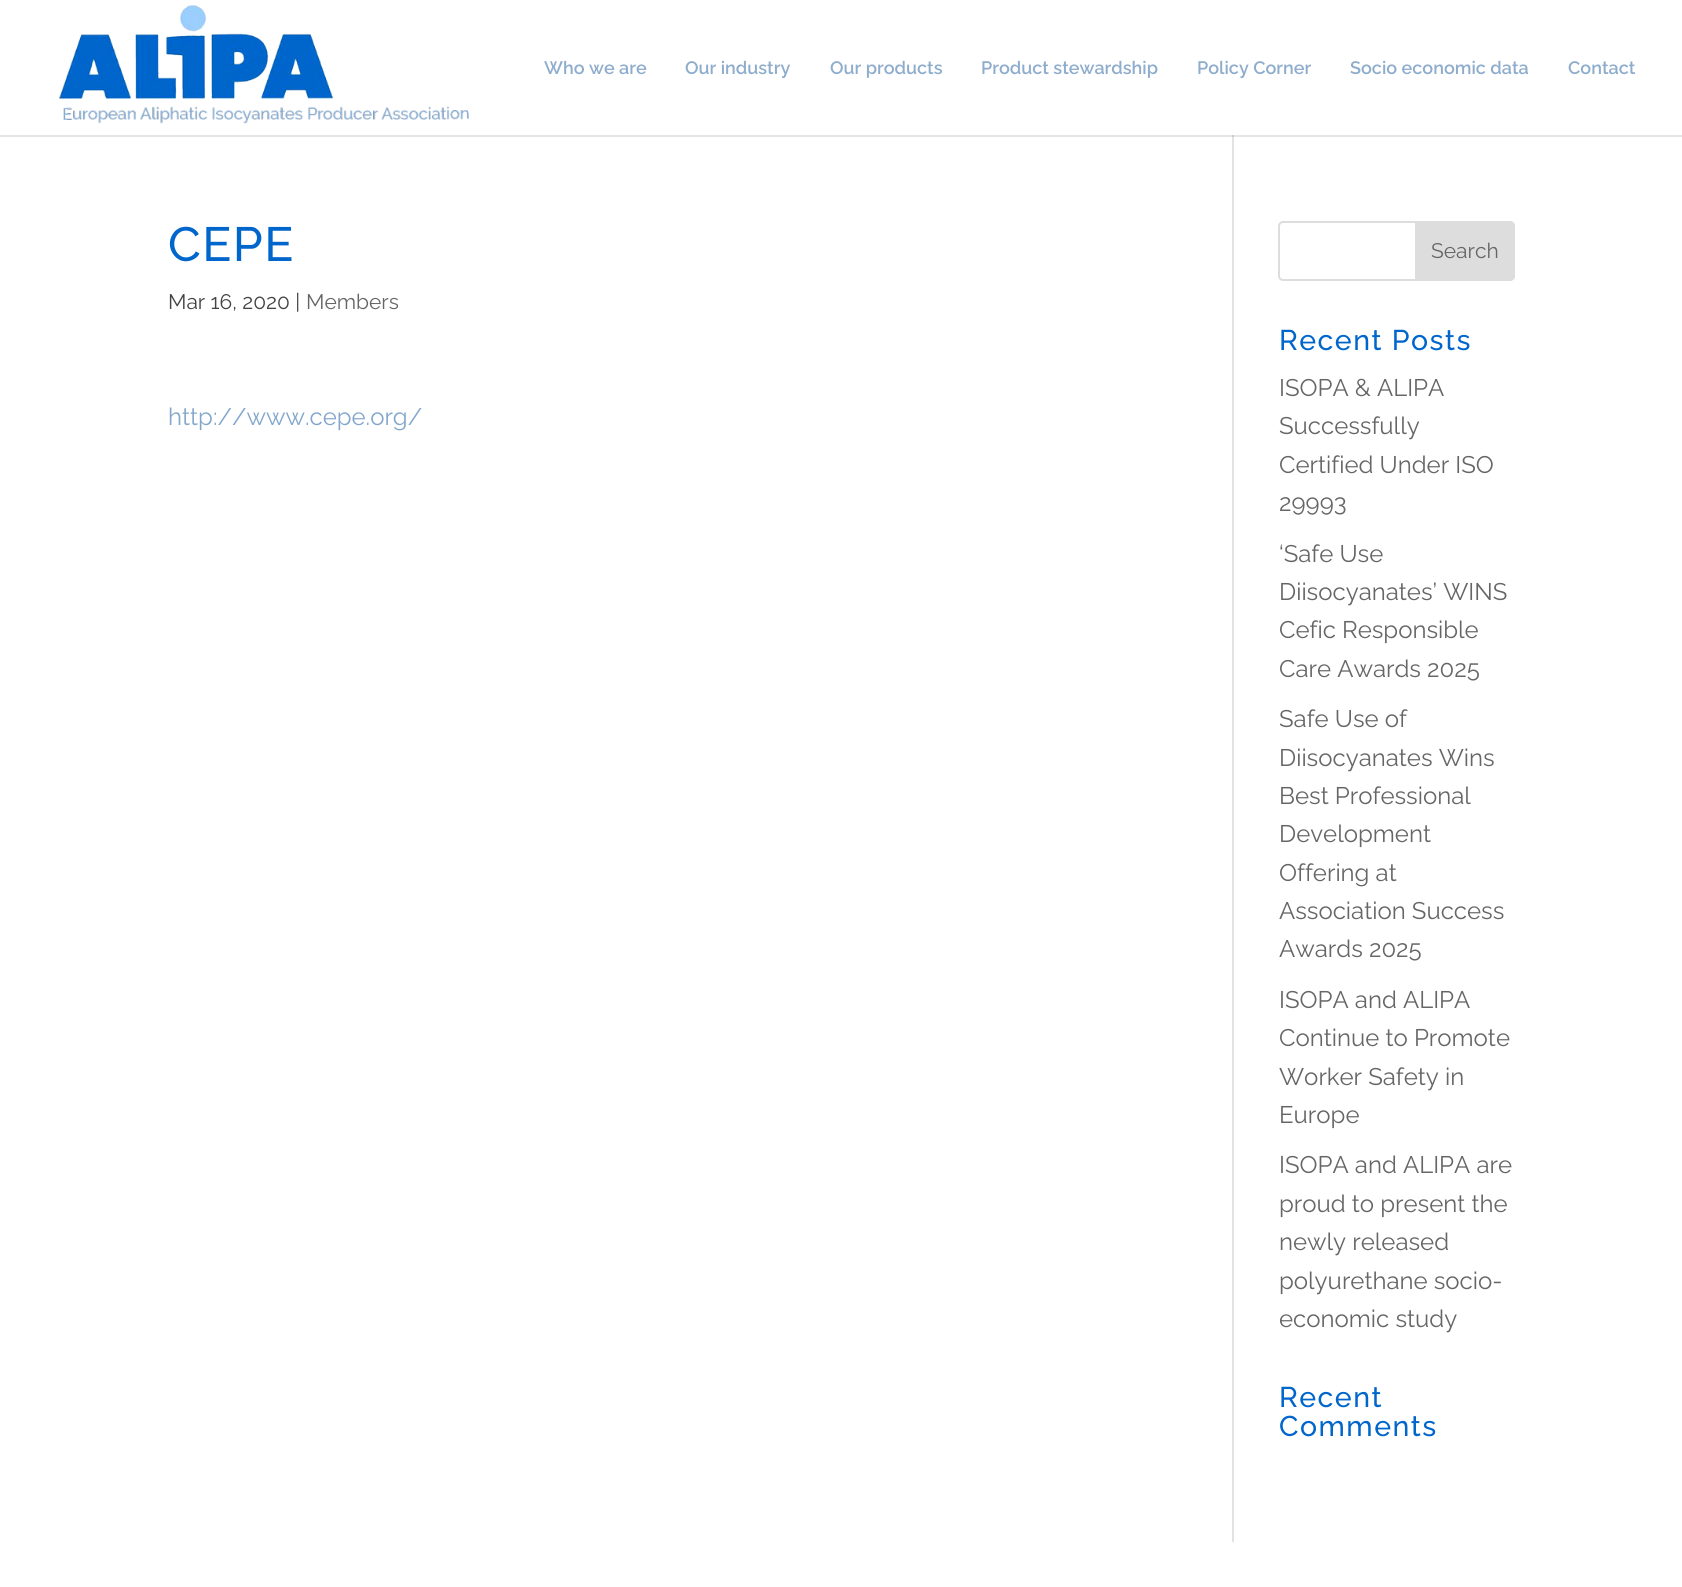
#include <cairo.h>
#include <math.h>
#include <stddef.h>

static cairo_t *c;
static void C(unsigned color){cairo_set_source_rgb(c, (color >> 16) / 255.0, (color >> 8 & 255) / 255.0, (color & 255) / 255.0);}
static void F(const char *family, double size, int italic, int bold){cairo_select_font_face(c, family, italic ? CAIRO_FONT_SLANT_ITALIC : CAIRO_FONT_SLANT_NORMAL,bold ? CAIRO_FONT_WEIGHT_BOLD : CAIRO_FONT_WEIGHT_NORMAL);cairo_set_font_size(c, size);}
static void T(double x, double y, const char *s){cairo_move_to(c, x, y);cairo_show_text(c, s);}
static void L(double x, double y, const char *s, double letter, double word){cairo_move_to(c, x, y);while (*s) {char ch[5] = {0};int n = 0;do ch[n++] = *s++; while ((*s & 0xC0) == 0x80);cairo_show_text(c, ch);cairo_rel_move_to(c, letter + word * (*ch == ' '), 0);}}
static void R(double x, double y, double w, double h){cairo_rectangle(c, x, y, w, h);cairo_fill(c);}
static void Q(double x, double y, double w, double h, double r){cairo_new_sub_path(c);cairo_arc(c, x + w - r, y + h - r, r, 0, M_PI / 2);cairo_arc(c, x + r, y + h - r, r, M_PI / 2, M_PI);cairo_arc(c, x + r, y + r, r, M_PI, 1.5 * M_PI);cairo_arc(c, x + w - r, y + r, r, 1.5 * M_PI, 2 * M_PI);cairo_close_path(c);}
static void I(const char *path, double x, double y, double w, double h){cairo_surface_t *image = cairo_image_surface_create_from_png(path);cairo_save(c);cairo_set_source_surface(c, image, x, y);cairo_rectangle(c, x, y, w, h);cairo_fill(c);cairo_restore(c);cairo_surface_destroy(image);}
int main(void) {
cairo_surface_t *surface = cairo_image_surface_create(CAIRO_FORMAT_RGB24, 1682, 1587);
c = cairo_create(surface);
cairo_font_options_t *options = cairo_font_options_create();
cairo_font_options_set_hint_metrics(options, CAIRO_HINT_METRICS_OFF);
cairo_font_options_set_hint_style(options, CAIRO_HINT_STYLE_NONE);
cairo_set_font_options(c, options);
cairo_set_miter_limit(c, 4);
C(0xffffff);
cairo_paint(c);
C(0xe6e6e6);
R(0,135,1682,2);
C(0xe2e2e2);
R(1232,134,2,1408);
C(0xffffff);
R(1232,134,2,1);
I("1.png",59,5,410,119);
F("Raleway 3 Thin",18,0,0);
C(0x8eaccc);
T(544,74,"Who we are");
T(685,74,"Our industry");
T(830,74,"Our products");
T(981,74,"Product stewardship");
T(1197,74,"Policy Corner");
T(1350,74,"Socio economic data");
T(1568,74,"Contact");
C(0xcbcbcb);
R(1232,135,2,2);
F("Raleway Thin",48,0,0);
C(0x0066cb);
L(168,261,"CEPE",1.5,0);
F("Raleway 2 Thin",21,0,0);
C(0x434343);
T(168,309,"Mar 16, 2020 |");
C(0x666666);
T(306,309,"Members");
F("Raleway 2 Thin",24,0,0);
C(0x82a6cc);
T(168,425,"http://www.cepe.org/");
Q(1279,222,235,58,4);
C(0xdddddd);
cairo_stroke(c);
cairo_new_path(c);
cairo_move_to(c,1416,222);
cairo_line_to(c,1510,222);
cairo_curve_to(c,1512,222,1514,224,1514,226);
cairo_line_to(c,1514,276);
cairo_curve_to(c,1514,278,1512,280,1510,280);
cairo_line_to(c,1416,280);
cairo_close_path(c);
cairo_fill_preserve(c);
cairo_stroke(c);
F("Raleway 2 Thin",21,0,0);
C(0x666666);
T(1431,258,"Search");
F("Raleway Thin",28.5,0,0);
C(0x0066cb);
L(1279,350,"Recent Posts",1.5,0);
F("Raleway 2 Thin",24,0,0);
C(0x666666);
T(1279,396,"ISOPA & ALIPA");
T(1279,434,"Successfully");
T(1279,473,"Certified Under ISO");
T(1279,511,"29993");
T(1279,562,"‘Safe Use");
T(1279,600,"Diisocyanates’ WINS");
T(1279,638,"Cefic Responsible");
T(1279,677,"Care Awards 2025");
T(1279,727,"Safe Use of");
T(1279,766,"Diisocyanates Wins");
T(1279,804,"Best Professional");
T(1279,842,"Development");
T(1279,881,"Offering at");
T(1279,919,"Association Success");
T(1279,957,"Awards 2025");
T(1279,1008,"ISOPA and ALIPA");
T(1279,1046,"Continue to Promote");
T(1279,1085,"Worker Safety in");
T(1279,1123,"Europe");
T(1279,1173,"ISOPA and ALIPA are");
T(1279,1212,"proud to present the");
T(1279,1250,"newly released");
T(1279,1289,"polyurethane socio-");
T(1279,1327,"economic study");
F("Raleway Thin",28.5,0,0);
C(0x0066cb);
L(1279,1407,"Recent",1.5,0);
L(1279,1436,"Comments",1.5,0);
cairo_surface_write_to_png(surface, "o.png");
cairo_font_options_destroy(options);
cairo_destroy(c);
cairo_surface_destroy(surface);
return 0;
}
